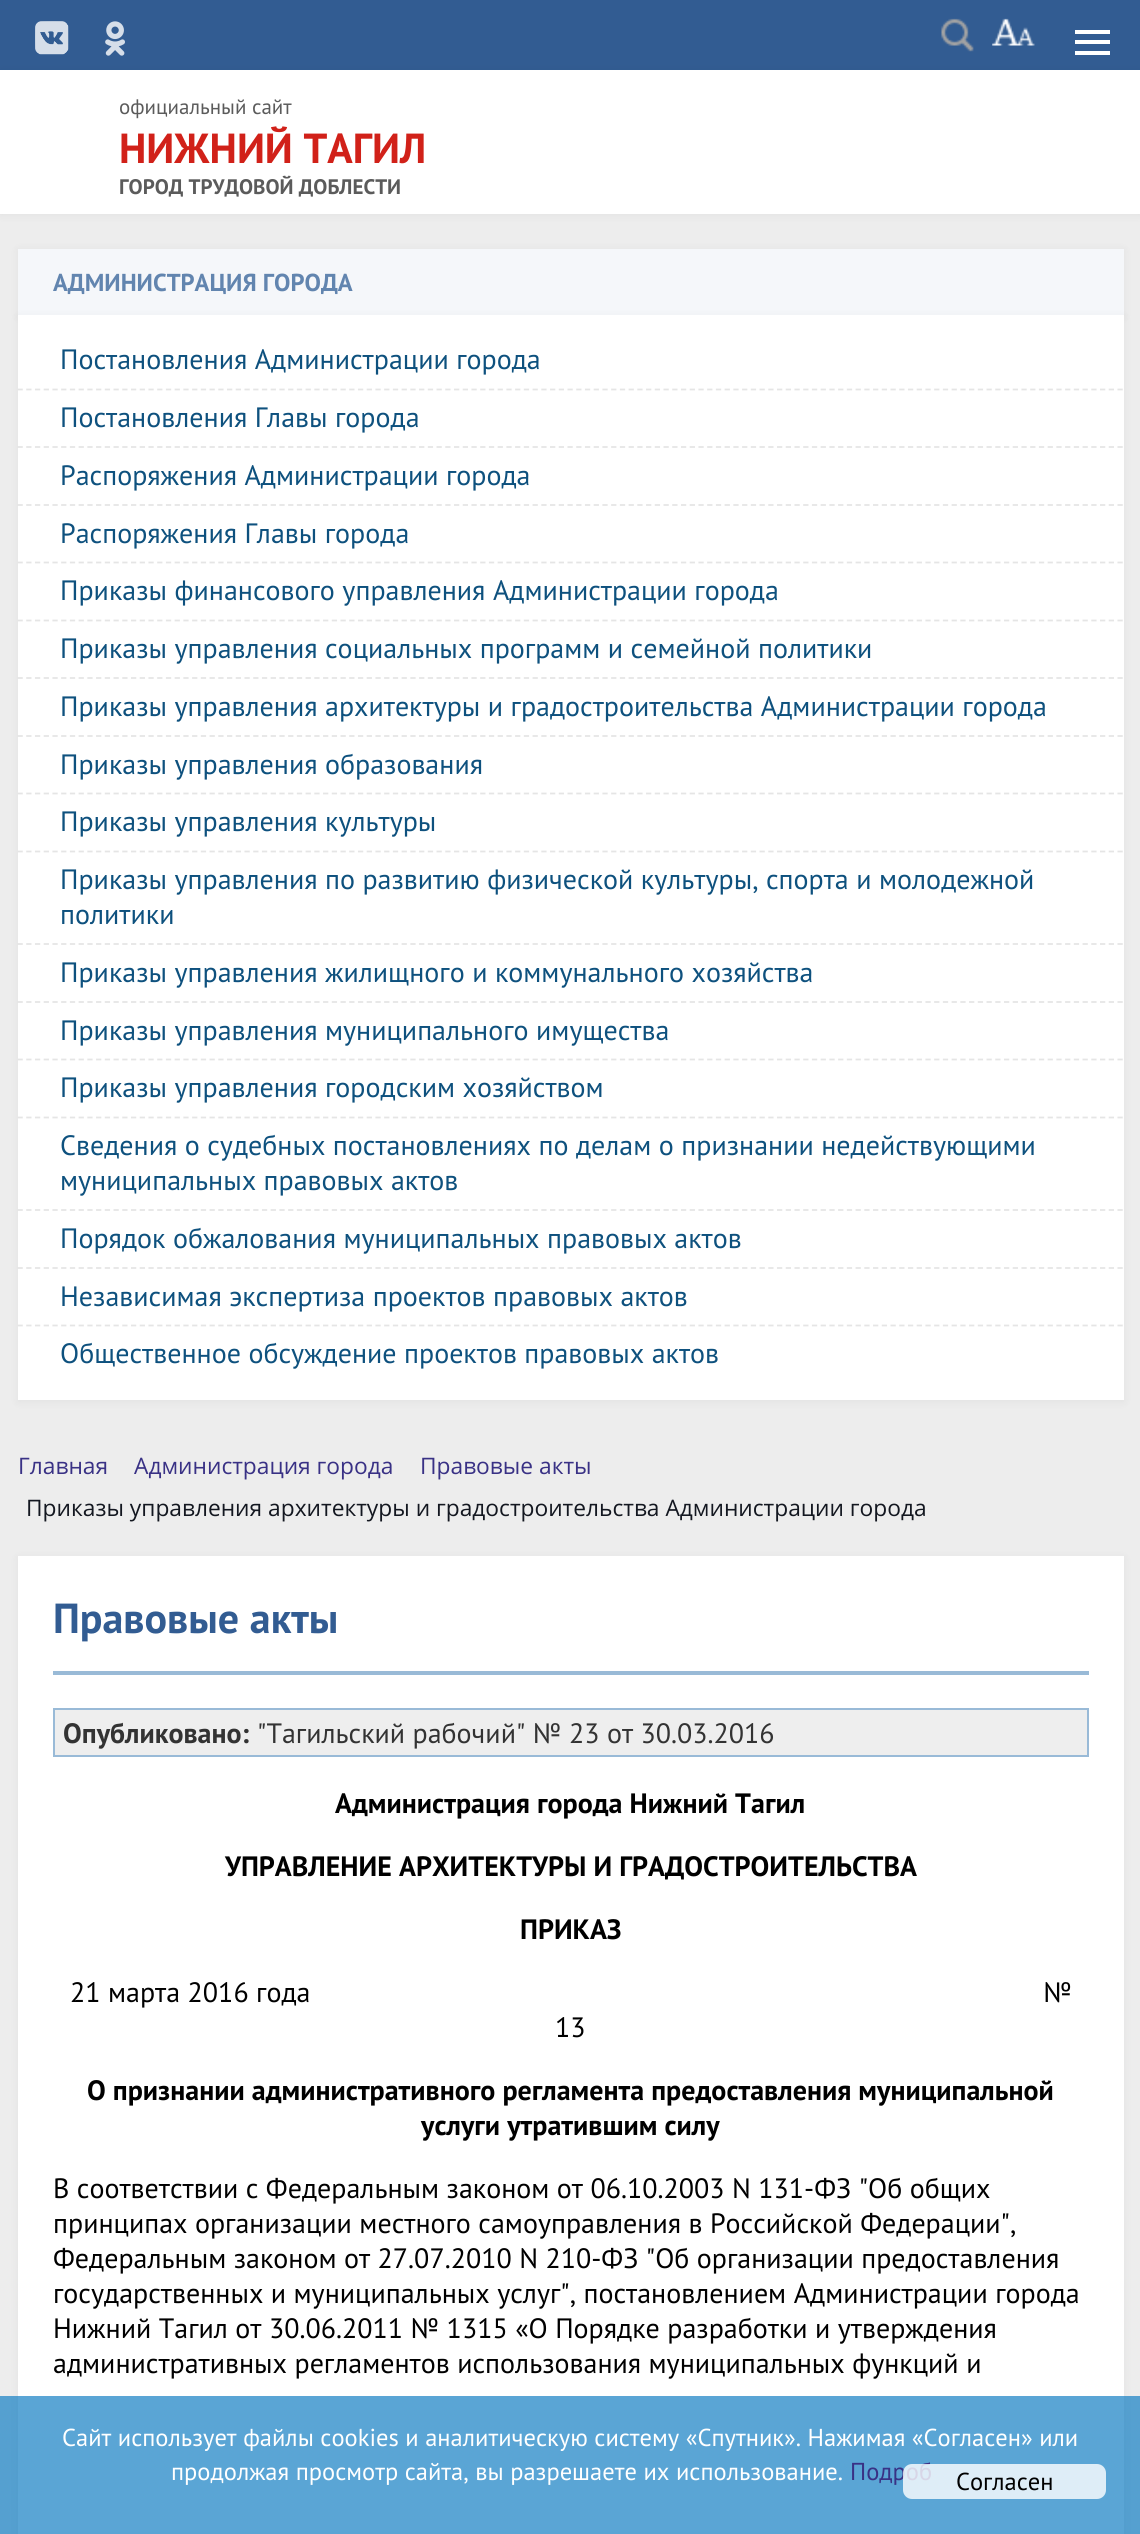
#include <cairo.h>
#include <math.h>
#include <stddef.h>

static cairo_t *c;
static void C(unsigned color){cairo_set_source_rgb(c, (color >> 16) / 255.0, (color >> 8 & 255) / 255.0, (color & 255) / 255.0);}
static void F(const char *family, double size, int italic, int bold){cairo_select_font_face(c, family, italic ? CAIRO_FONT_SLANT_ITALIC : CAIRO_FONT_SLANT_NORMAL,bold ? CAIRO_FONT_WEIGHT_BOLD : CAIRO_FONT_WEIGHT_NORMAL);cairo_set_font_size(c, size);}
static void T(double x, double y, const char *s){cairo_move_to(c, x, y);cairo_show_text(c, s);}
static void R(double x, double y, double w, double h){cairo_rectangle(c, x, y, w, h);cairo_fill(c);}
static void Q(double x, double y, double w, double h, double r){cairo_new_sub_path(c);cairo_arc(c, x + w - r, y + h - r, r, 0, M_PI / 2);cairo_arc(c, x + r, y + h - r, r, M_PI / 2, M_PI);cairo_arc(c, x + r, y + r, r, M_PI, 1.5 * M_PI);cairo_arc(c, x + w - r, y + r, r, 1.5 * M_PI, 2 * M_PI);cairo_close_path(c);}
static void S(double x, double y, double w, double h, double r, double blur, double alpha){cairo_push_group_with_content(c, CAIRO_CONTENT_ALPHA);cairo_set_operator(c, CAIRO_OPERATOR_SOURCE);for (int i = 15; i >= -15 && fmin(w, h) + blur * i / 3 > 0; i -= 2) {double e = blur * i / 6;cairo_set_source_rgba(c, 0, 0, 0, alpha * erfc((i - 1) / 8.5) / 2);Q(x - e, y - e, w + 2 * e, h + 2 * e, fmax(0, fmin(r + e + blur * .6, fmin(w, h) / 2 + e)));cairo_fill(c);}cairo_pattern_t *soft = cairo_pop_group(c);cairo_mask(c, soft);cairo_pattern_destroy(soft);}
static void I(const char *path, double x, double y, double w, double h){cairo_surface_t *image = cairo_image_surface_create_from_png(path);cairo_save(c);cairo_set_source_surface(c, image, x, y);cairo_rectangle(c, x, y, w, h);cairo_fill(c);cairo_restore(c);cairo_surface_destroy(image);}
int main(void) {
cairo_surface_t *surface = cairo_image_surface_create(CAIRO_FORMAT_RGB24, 1140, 2534);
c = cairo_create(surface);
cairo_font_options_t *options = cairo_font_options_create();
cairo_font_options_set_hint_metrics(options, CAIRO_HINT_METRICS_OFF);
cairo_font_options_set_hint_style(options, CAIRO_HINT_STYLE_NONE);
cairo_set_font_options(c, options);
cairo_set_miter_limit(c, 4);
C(0xededed);
cairo_paint(c);
C(0x325c92);
R(0,0,1140,70);
C(0xffffff);
R(1075,40,35,4);
R(1075,30,35,4);
R(1075,51,35,4);
I("1.png",35,21,34,34);
I("2.png",105,21,20,35);
I("3.png",941,18,33,34);
I("4.png",992,18,43,28);
C(0x000000);
S(0,72,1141,143,0,4.5,.05);
C(0xffffff);
R(0,70,1140,144);
F("PT Sans",21,0,0);
C(0x5b5b5b);
T(119,114,"официальный сайт");
F("PT Sans",42,0,1);
C(0xd12119);
T(119,163,"НИЖНИЙ ТАГИЛ");
F("PT Sans",21,0,1);
C(0x5b5b5b);
T(119,194,"ГОРОД ТРУДОВОЙ ДОБЛЕСТИ");
C(0x000000);
S(18,250,1106,67,0,4.5,.05);
C(0xf5f7fa);
R(18,249,1106,66);
F("PT Sans",24.5,0,1);
C(0x6285af);
T(53,291,"АДМИНИСТРАЦИЯ ГОРОДА");
C(0x000000);
S(18,317,1106,1085,0,4.5,.05);
C(0xffffff);
R(18,315,1106,1085);
cairo_new_path(c);
cairo_move_to(c,17.5,389.5);
cairo_line_to(c,1123.5,389.5);
C(0xe5e5e5);
cairo_set_line_width(c,1.8);
cairo_set_dash(c,(double[]){5.25,3.48},2,0);
cairo_stroke(c);
F("PT Sans",28,0,0);
C(0x0e517e);
T(60,369,"Постановления Администрации города");
cairo_new_path(c);
cairo_move_to(c,17.5,447);
cairo_line_to(c,1123.5,447);
C(0xe5e5e5);
cairo_stroke(c);
C(0x0e517e);
T(60,427,"Постановления Главы города");
cairo_new_path(c);
cairo_move_to(c,17.5,505);
cairo_line_to(c,1123.5,505);
C(0xe5e5e5);
cairo_stroke(c);
C(0x0e517e);
T(60,485,"Распоряжения Администрации города");
cairo_new_path(c);
cairo_move_to(c,17.5,562.5);
cairo_line_to(c,1123.5,562.5);
C(0xe5e5e5);
cairo_stroke(c);
C(0x0e517e);
T(60,543,"Распоряжения Главы города");
cairo_new_path(c);
cairo_move_to(c,17.5,620.5);
cairo_line_to(c,1123.5,620.5);
C(0xe5e5e5);
cairo_stroke(c);
C(0x0e517e);
T(60,600,"Приказы финансового управления Администрации города");
cairo_new_path(c);
cairo_move_to(c,17.5,678);
cairo_line_to(c,1123.5,678);
C(0xe5e5e5);
cairo_stroke(c);
C(0x0e517e);
T(60,658,"Приказы управления социальных программ и семейной политики");
cairo_new_path(c);
cairo_move_to(c,17.5,736);
cairo_line_to(c,1123.5,736);
C(0xe5e5e5);
cairo_stroke(c);
C(0x0e517e);
T(60,716,"Приказы управления архитектуры и градостроительства Администрации города");
cairo_new_path(c);
cairo_move_to(c,17.5,793.5);
cairo_line_to(c,1123.5,793.5);
C(0xe5e5e5);
cairo_stroke(c);
C(0x0e517e);
T(60,774,"Приказы управления образования");
cairo_new_path(c);
cairo_move_to(c,17.5,851.5);
cairo_line_to(c,1123.5,851.5);
C(0xe5e5e5);
cairo_stroke(c);
C(0x0e517e);
T(60,831,"Приказы управления культуры");
cairo_new_path(c);
cairo_move_to(c,17.5,944);
cairo_line_to(c,1123.5,944);
C(0xe5e5e5);
cairo_stroke(c);
C(0x0e517e);
T(60,889,"Приказы управления по развитию физической культуры, спорта и молодежной");
T(60,924,"политики");
cairo_new_path(c);
cairo_move_to(c,17.5,1002);
cairo_line_to(c,1123.5,1002);
C(0xe5e5e5);
cairo_stroke(c);
C(0x0e517e);
T(60,982,"Приказы управления жилищного и коммунального хозяйства");
cairo_new_path(c);
cairo_move_to(c,17.5,1059.5);
cairo_line_to(c,1123.5,1059.5);
C(0xe5e5e5);
cairo_stroke(c);
C(0x0e517e);
T(60,1040,"Приказы управления муниципального имущества");
cairo_new_path(c);
cairo_move_to(c,17.5,1117.5);
cairo_line_to(c,1123.5,1117.5);
C(0xe5e5e5);
cairo_stroke(c);
C(0x0e517e);
T(60,1097,"Приказы управления городским хозяйством");
cairo_new_path(c);
cairo_move_to(c,17.5,1210);
cairo_line_to(c,1123.5,1210);
C(0xe5e5e5);
cairo_stroke(c);
C(0x0e517e);
T(60,1155,"Сведения о судебных постановлениях по делам о признании недействующими");
T(60,1190,"муниципальных правовых актов");
cairo_new_path(c);
cairo_move_to(c,17.5,1268);
cairo_line_to(c,1123.5,1268);
C(0xe5e5e5);
cairo_stroke(c);
C(0x0e517e);
T(60,1248,"Порядок обжалования муниципальных правовых актов");
cairo_new_path(c);
cairo_move_to(c,17.5,1325.5);
cairo_line_to(c,1123.5,1325.5);
C(0xe5e5e5);
cairo_stroke(c);
C(0x0e517e);
T(60,1306,"Независимая экспертиза проектов правовых актов");
T(60,1363,"Общественное обсуждение проектов правовых актов");
F("Open Sans",22.75,0,0);
C(0x393185);
T(18,1474,"Главная");
T(134,1474,"Администрация города");
T(420,1474,"Правовые акты");
C(0x131720);
T(26,1516,"Приказы управления архитектуры и градостроительства Администрации города");
C(0x000000);
S(18,1558,1106,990,0,4.5,.05);
C(0xffffff);
R(18,1556,1106,978);
F("PT Sans",42,0,1);
C(0x325c92);
T(53,1633,"Правовые акты");
C(0x99bad7);
R(53,1671,1036,4);
C(0xeeeeee);
R(55,1710,1032,45);
C(0x99bad7);
R(53,1708,1036,2);
R(1087,1708,2,49);
R(53,1755,1036,2);
R(53,1708,2,49);
F("PT Sans",28,0,1);
C(0x333333);
T(63,1743,"Опубликовано:");
F("PT Sans",28,0,0);
T(257,1743,"\"Тагильский рабочий\" № 23 от 30.03.2016");
F("PT Sans",28,0,1);
C(0x000000);
T(335,1813,"Администрация города Нижний Тагил");
T(225,1876,"УПРАВЛЕНИЕ АРХИТЕКТУРЫ И ГРАДОСТРОИТЕЛЬСТВА");
T(520,1939,"ПРИКАЗ");
F("PT Sans",28,0,0);
T(70,2002,"21 марта 2016 года                                                                                                  №");
T(555,2037,"13");
F("PT Sans",28,0,1);
T(87,2100,"О признании административного регламента предоставления муниципальной");
T(421,2135,"услуги утратившим силу");
F("PT Sans",28,0,0);
T(53,2198,"В соответствии с Федеральным законом от 06.10.2003 N 131-ФЗ \"Об общих");
T(53,2233,"принципах организации местного самоуправления в Российской Федерации\",");
T(53,2268,"Федеральным законом от 27.07.2010 N 210-ФЗ \"Об организации предоставления");
T(53,2303,"государственных и муниципальных услуг\", постановлением Администрации города");
T(53,2338,"Нижний Тагил от 30.06.2011 № 1315 «О Порядке разработки и утверждения");
T(53,2373,"административных регламентов использования муниципальных функций и");
cairo_set_source_rgba(c,0.082,0.498,0.769,0.7);
R(0,2396,1140,138);
F("PT Sans",24.5,0,0);
C(0xffffff);
T(62,2446,"Сайт использует файлы cookies и аналитическую систему «Спутник». Нажимая «Согласен» или");
T(171,2480,"продолжая просмотр сайта, вы разрешаете их использование.");
C(0x393185);
T(850,2480,"Подроб");
cairo_set_source_rgba(c,1,1,1,0.8);
Q(903,2464,203,35,9);
cairo_fill(c);
C(0x000000);
T(956,2490,"Согласен");
cairo_surface_write_to_png(surface, "o.png");
cairo_font_options_destroy(options);
cairo_destroy(c);
cairo_surface_destroy(surface);
return 0;
}
